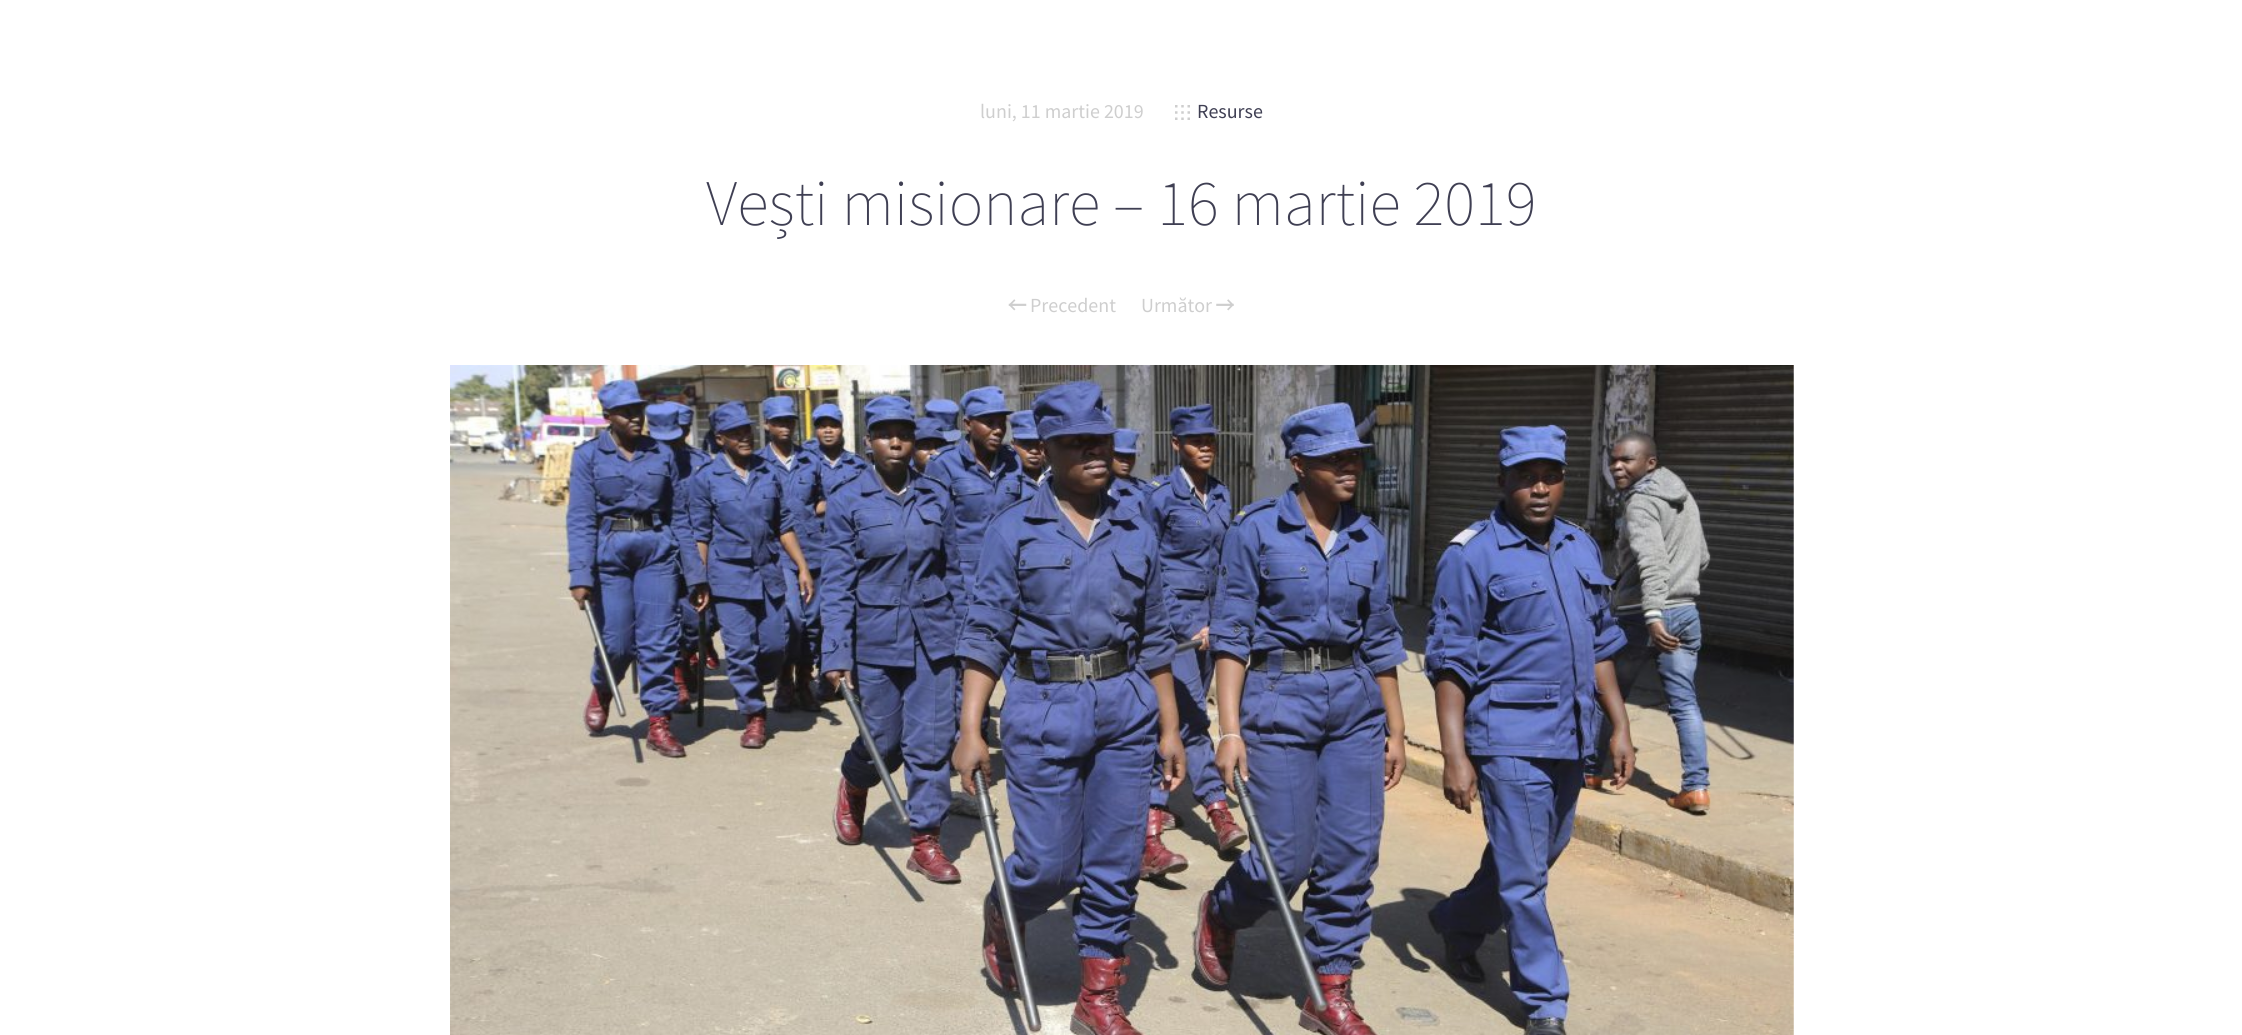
#include <cairo.h>
#include <math.h>
#include <stddef.h>

static cairo_t *c;
static void C(unsigned color){cairo_set_source_rgb(c, (color >> 16) / 255.0, (color >> 8 & 255) / 255.0, (color & 255) / 255.0);}
static void F(const char *family, double size, int italic, int bold){cairo_select_font_face(c, family, italic ? CAIRO_FONT_SLANT_ITALIC : CAIRO_FONT_SLANT_NORMAL,bold ? CAIRO_FONT_WEIGHT_BOLD : CAIRO_FONT_WEIGHT_NORMAL);cairo_set_font_size(c, size);}
static void T(double x, double y, const char *s){cairo_move_to(c, x, y);cairo_show_text(c, s);}
static void I(const char *path, double x, double y, double w, double h){cairo_surface_t *image = cairo_image_surface_create_from_png(path);cairo_save(c);cairo_set_source_surface(c, image, x, y);cairo_rectangle(c, x, y, w, h);cairo_fill(c);cairo_restore(c);cairo_surface_destroy(image);}
int main(void) {
cairo_surface_t *surface = cairo_image_surface_create(CAIRO_FORMAT_RGB24, 2242, 1035);
c = cairo_create(surface);
cairo_font_options_t *options = cairo_font_options_create();
cairo_font_options_set_hint_metrics(options, CAIRO_HINT_METRICS_OFF);
cairo_font_options_set_hint_style(options, CAIRO_HINT_STYLE_NONE);
cairo_set_font_options(c, options);
cairo_set_miter_limit(c, 4);
C(0xffffff);
cairo_paint(c);
F("Source Sans Pro",20,0,0);
C(0xcecece);
T(980,118,"luni, 11 martie 2019");
I("1.png",1175,105,15,15);
C(0x3f3f53);
T(1197,118,"Resurse");
F("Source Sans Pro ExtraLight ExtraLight",65,0,0);
T(706,225,"Vești misionare – 16 martie 2019");
I("2.png",1008,299,19,12);
F("Source Sans Pro",20,0,0);
C(0xcecece);
T(1030,312,"Precedent");
T(1141,312,"Următor");
I("3.png",1216,299,18,12);
I("4.png",450,365,1344,670);
cairo_surface_write_to_png(surface, "o.png");
cairo_font_options_destroy(options);
cairo_destroy(c);
cairo_surface_destroy(surface);
return 0;
}
